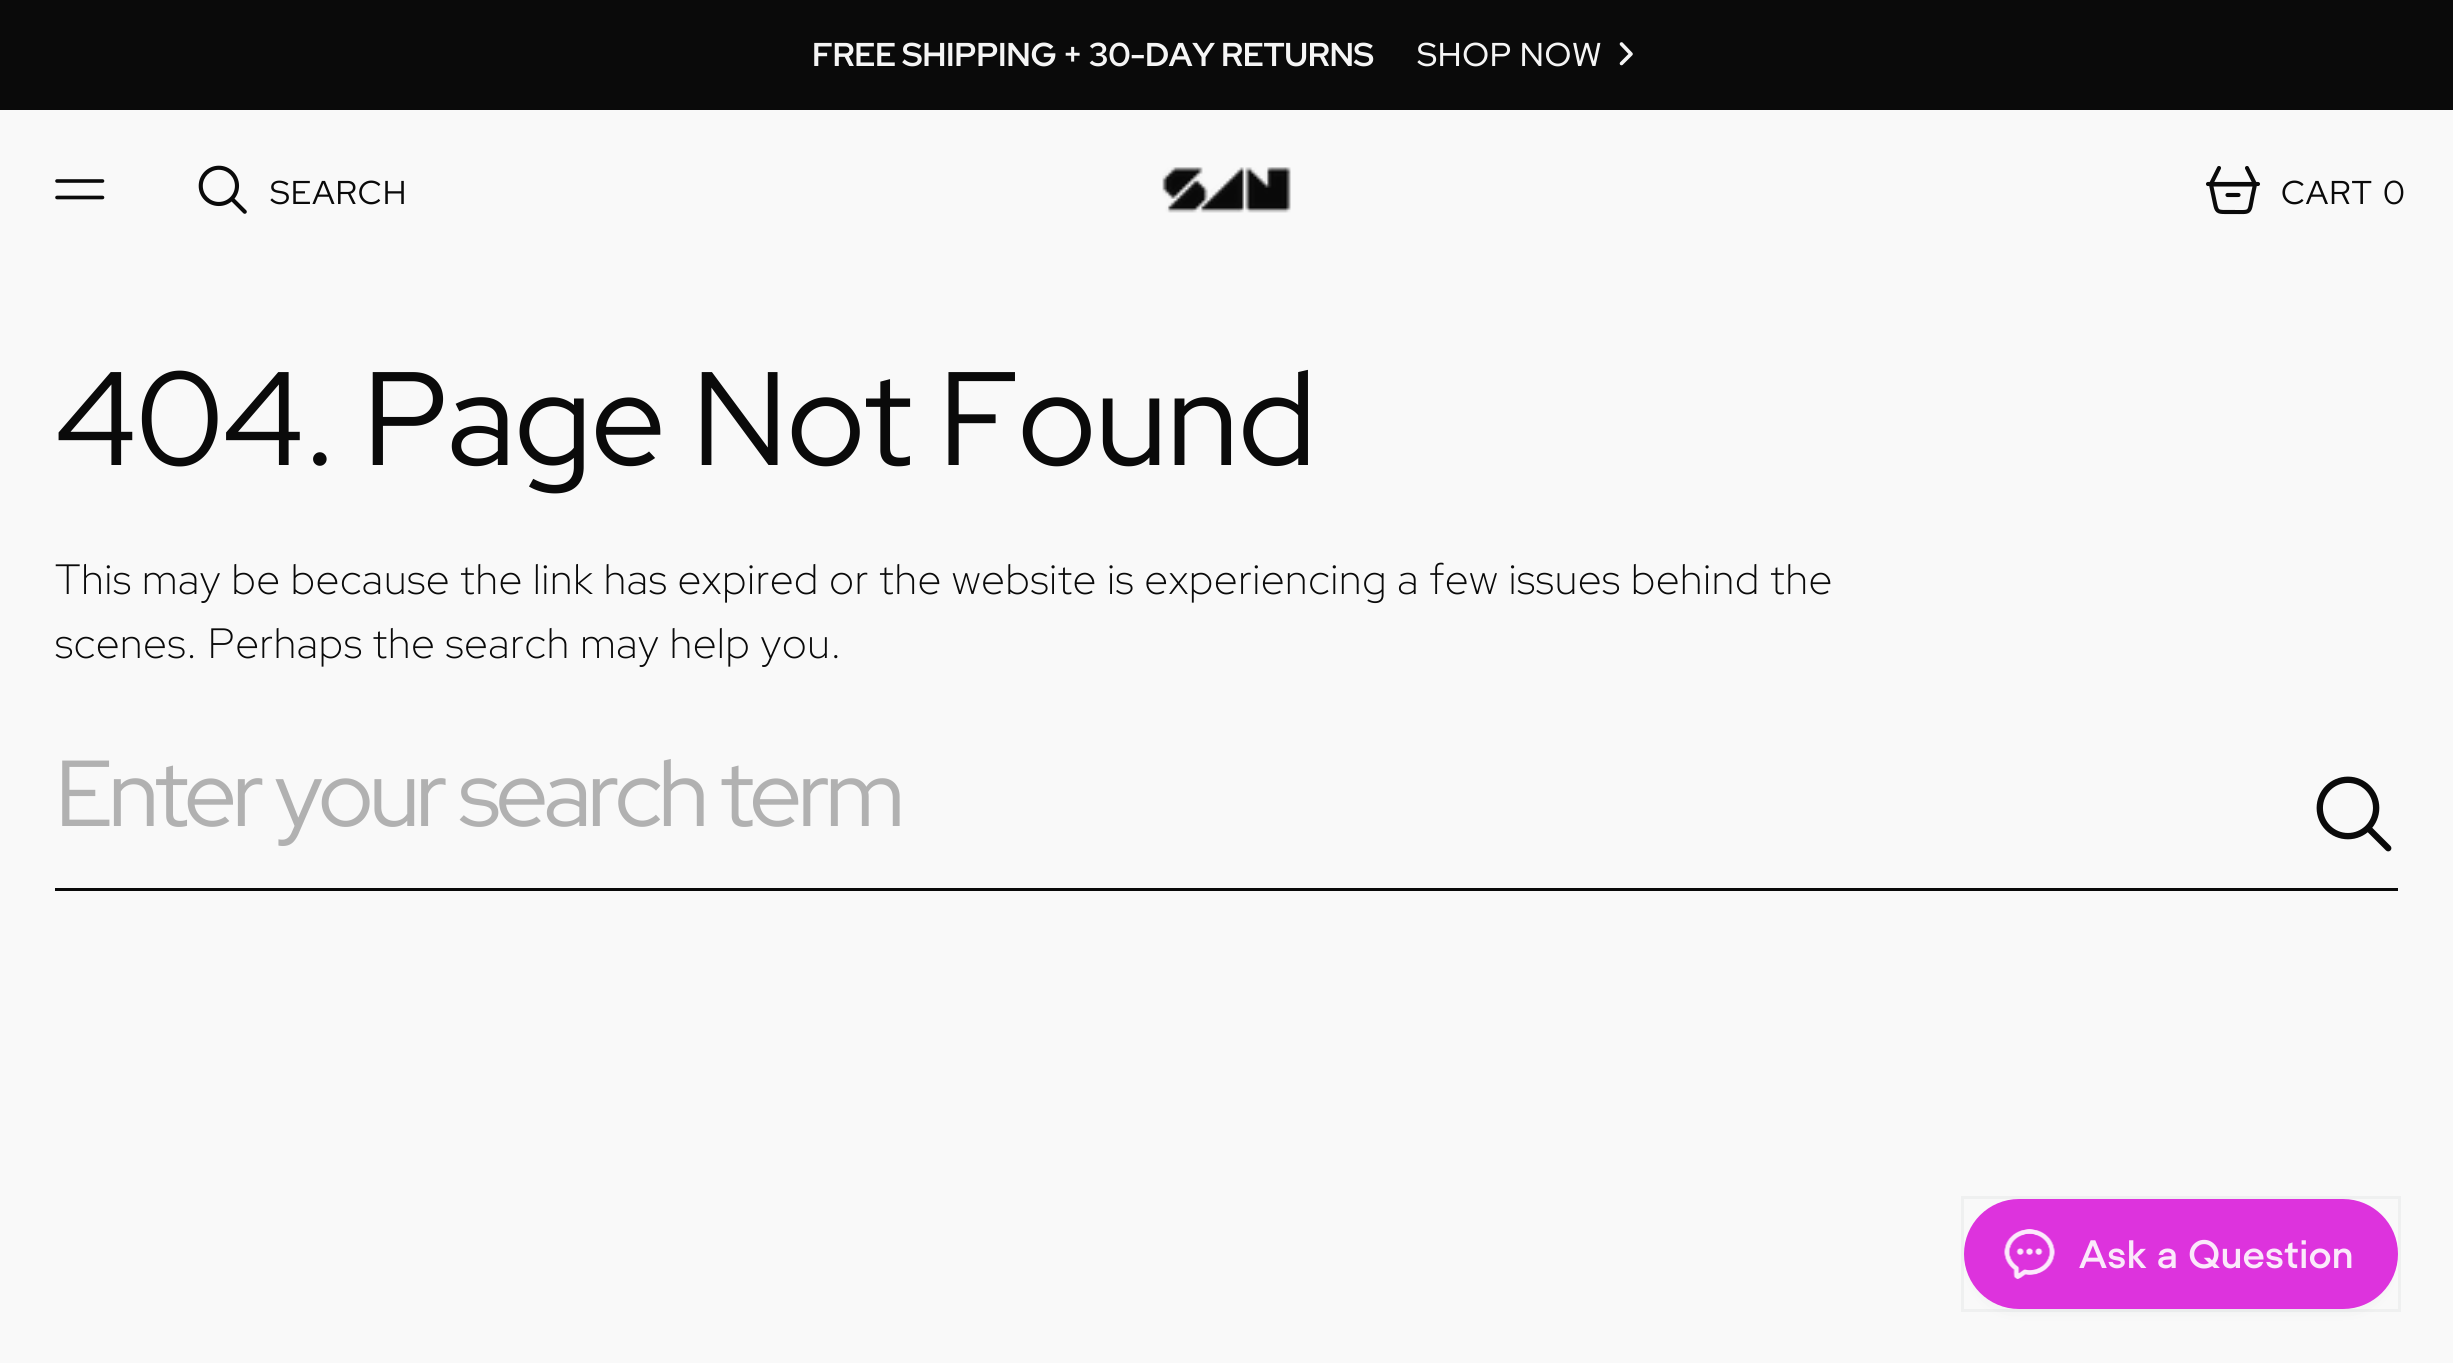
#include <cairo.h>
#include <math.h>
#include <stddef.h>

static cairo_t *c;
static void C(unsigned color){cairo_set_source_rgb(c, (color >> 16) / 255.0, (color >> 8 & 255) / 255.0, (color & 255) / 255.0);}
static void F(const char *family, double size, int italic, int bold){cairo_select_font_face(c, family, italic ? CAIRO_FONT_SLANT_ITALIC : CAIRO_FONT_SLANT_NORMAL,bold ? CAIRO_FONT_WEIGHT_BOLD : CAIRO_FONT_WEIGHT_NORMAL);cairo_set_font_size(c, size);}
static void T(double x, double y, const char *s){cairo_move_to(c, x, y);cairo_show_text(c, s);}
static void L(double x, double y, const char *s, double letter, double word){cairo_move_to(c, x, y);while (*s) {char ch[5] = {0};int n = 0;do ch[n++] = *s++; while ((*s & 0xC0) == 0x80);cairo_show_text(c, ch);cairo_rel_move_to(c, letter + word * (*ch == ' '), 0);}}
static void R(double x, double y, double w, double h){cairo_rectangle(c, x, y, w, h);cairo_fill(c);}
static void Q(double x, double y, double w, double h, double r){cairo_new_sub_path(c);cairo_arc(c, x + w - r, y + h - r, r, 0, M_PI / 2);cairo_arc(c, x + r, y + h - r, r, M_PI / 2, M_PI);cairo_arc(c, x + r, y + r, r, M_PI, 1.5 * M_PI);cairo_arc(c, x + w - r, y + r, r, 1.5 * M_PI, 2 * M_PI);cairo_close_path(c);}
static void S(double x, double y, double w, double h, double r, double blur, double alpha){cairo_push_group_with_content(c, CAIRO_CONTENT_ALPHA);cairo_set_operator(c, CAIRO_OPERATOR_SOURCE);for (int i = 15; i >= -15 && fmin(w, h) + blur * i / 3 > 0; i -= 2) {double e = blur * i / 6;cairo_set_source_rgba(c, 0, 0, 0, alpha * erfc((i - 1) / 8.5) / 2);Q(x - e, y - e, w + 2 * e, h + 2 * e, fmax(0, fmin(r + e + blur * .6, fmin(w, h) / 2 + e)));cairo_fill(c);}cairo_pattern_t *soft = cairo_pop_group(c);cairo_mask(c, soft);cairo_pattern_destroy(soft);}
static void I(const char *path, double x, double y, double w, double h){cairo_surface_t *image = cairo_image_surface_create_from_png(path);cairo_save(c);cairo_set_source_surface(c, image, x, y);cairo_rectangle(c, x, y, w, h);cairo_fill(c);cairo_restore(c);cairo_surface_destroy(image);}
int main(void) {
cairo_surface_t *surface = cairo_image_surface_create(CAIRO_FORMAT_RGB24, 2453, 1363);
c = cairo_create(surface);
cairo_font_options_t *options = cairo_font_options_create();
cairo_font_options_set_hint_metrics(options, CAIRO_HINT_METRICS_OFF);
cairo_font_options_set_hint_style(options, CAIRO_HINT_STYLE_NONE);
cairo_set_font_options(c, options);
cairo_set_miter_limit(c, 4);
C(0xf9f9f9);
cairo_paint(c);
C(0x0a0a0a);
R(0,0,2453,110);
F("Red Hat Display",33,0,1);
C(0xf5f5f5);
L(812,66,"FREE SHIPPING + 30-DAY RETURNS",-.3,0);
F("Red Hat Display Medium",33,0,0);
L(1417,66,"SHOP NOW",.75,0);
cairo_new_path(c);
cairo_move_to(c,1621.5,63.5);
cairo_line_to(c,1631,54);
cairo_line_to(c,1621.5,44);
cairo_set_line_width(c,3.6);
cairo_set_line_cap(c,CAIRO_LINE_CAP_ROUND);
cairo_set_line_join(c,CAIRO_LINE_JOIN_ROUND);
cairo_stroke(c);
cairo_new_path(c);
cairo_move_to(c,57,181);
cairo_line_to(c,102.5,181);
cairo_move_to(c,57,197.5);
cairo_line_to(c,102.5,197.5);
C(0x0a0a0a);
cairo_set_line_join(c,CAIRO_LINE_JOIN_MITER);
cairo_stroke(c);
I("1.png",198,165,49,49);
F("Red Hat Display",33,0,0);
L(270,204,"SEARCH",1,0);
I("2.png",1162,167,129,46);
cairo_new_path(c);
cairo_move_to(c,2208,184);
cairo_line_to(c,2258,184);
cairo_move_to(c,2211,184);
cairo_line_to(c,2219,168);
cairo_move_to(c,2247,168);
cairo_line_to(c,2255,184);
cairo_move_to(c,2227.5,195);
cairo_line_to(c,2238.5,195);
cairo_move_to(c,2211,184.5);
cairo_line_to(c,2215,203.5);
cairo_curve_to(c,2216.5,211,2217.5,212,2225,212);
cairo_line_to(c,2233,212);
cairo_curve_to(c,2251.5,212,2249,214,2252.5,196);
cairo_line_to(c,2255,184.5);
cairo_close_path(c);
cairo_set_line_width(c,4.1);
cairo_stroke(c);
L(2281,204,"CART",1,0);
L(2383,204,"0",1,0);
F("Red Hat Display",132.75,0,0);
L(55,465,"404. Page Not Found",-1.3,0);
F("Red Hat Display Light",42.35,0,0);
L(55,594,"This may be because the link has expired or the website is experiencing a few issues behind the",.85,0);
L(55,658,"scenes. Perhaps the search may help you.",.85,0);
R(55,888,2343,3);
F("Red Hat Display",93.5,0,0);
C(0xb1b1b1);
L(55,826,"Enter your search term",-4.7,0);
I("3.png",2316,776,76,76);
C(0x161a1e);
S(1980,1227,402,77,38.5,11,.08);
cairo_rectangle(c,1962.5,1197.5,437,113);
cairo_set_source_rgba(c,0.086,0.102,0.118,0.04);
cairo_set_line_width(c,3);
cairo_set_line_cap(c,CAIRO_LINE_CAP_BUTT);
cairo_stroke(c);
C(0xdd33dd);
Q(1964,1199,434,110,55);
cairo_fill(c);
I("4.png",2004,1229,51,50);
F("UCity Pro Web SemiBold",38.5,0,0);
C(0xfbe9fb);
T(2079,1268,"Ask a Question");
cairo_surface_write_to_png(surface, "o.png");
cairo_font_options_destroy(options);
cairo_destroy(c);
cairo_surface_destroy(surface);
return 0;
}
